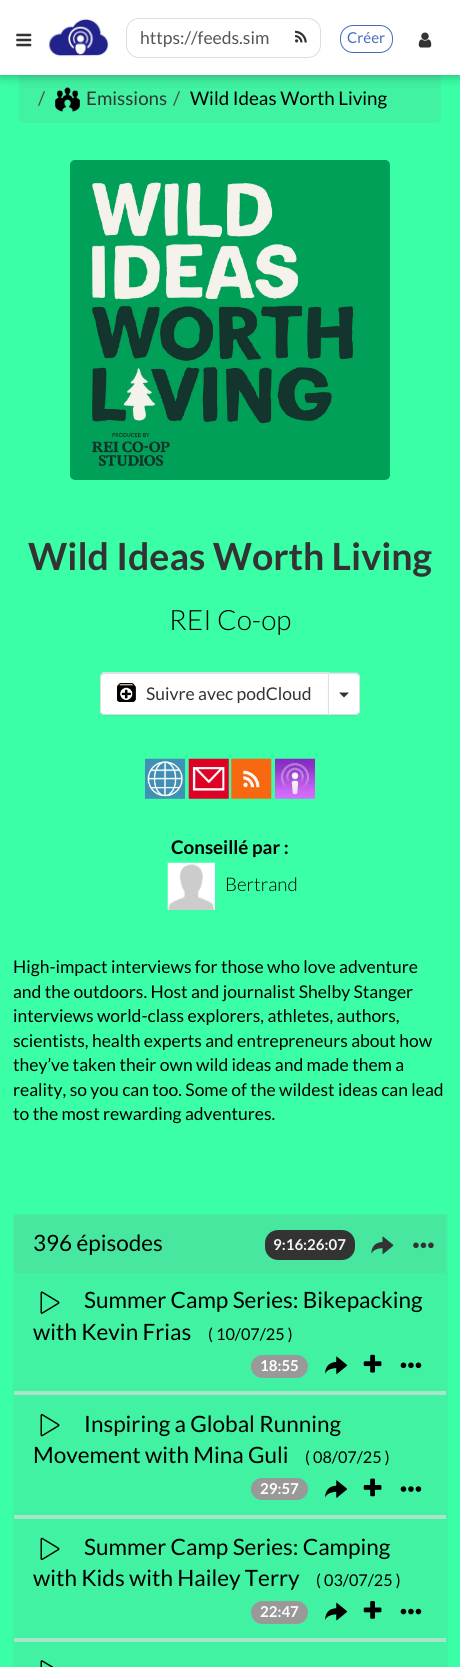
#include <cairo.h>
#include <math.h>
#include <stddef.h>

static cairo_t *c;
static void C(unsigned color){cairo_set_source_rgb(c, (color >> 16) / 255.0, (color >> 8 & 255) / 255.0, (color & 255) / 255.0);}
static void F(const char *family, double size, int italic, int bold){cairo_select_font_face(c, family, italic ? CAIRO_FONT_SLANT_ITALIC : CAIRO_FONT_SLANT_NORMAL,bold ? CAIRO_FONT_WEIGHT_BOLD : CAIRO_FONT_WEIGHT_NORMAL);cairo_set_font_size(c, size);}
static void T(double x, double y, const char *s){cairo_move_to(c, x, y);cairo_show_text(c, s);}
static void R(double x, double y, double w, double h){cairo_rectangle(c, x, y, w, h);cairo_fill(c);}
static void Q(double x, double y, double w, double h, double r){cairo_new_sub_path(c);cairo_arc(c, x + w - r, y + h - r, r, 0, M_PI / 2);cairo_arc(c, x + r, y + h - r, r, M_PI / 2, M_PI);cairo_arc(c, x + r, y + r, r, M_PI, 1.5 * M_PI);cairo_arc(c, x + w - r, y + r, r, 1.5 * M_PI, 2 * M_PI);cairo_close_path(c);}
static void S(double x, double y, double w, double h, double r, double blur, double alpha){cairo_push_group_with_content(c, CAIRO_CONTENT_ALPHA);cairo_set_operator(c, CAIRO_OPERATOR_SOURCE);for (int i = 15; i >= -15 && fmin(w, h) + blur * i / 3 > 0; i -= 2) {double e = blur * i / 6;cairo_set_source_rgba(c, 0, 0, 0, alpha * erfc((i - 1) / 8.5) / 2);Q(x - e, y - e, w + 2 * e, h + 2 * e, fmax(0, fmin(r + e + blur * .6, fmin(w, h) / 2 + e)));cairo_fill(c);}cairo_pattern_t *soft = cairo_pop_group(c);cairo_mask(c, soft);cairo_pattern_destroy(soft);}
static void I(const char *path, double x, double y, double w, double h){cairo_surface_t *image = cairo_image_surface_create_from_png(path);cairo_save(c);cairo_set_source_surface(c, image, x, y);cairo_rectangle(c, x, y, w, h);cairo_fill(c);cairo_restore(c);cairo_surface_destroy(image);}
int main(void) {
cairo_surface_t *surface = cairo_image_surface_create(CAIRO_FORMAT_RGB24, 460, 1667);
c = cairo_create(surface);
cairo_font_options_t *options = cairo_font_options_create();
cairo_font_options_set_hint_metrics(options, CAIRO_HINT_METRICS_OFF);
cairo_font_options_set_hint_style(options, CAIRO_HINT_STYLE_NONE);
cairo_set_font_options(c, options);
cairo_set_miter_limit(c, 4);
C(0x3affa6);
cairo_paint(c);
C(0x41f2a2);
cairo_new_path(c);
cairo_move_to(c,19,75);
cairo_line_to(c,441,75);
cairo_line_to(c,441,118);
cairo_curve_to(c,441,121,439,123,436,123);
cairo_line_to(c,24,123);
cairo_curve_to(c,21,123,19,121,19,118);
cairo_close_path(c);
cairo_fill(c);
I("5.png",55,87,25,25);
C(0x000000);
S(0,0,460,75,0,6,.35);
C(0xffffff);
R(0,0,460,75);
I("1.png",16,33,16,14);
I("2.png",48,18,61,39);
Q(126.5,18.5,194,39,12.5);
C(0xdddddd);
cairo_set_line_width(c,1);
cairo_stroke(c);
F("Lato",17.5,0,0);
C(0x555555);
T(140,44,"https://feeds.sim");
I("3.png",295,30,12,13);
Q(340.5,25.5,52,27,12.5);
C(0x466bbf);
cairo_stroke(c);
F("Lato",15,0,0);
T(347,43,"Créer");
I("4.png",418,32,14,16);
F("Lato",18.75,0,0);
C(0x4d4d4d);
T(38,105,"/");
C(0x333333);
T(86,105,"Emissions");
C(0x4d4d4d);
T(173,105,"/");
C(0x000000);
T(190,105,"Wild Ideas Worth Living");
I("6.png",70,160,320,320);
F("Lato",37.5,0,1);
C(0x333333);
T(28,570,"Wild Ideas Worth Living");
F("Lato Light",28,0,0);
C(0x000000);
T(169,630,"REI Co-op");
C(0x5a5a5a);
S(100,674,229,42,5,.5,.1);
C(0xffffff);
cairo_new_path(c);
cairo_move_to(c,105,673);
cairo_line_to(c,329,673);
cairo_line_to(c,329,715);
cairo_line_to(c,105,715);
cairo_curve_to(c,102,715,100,713,100,710);
cairo_line_to(c,100,678);
cairo_curve_to(c,100,675,102,673,105,673);
cairo_close_path(c);
cairo_fill(c);
C(0xdbe2e7);
cairo_new_path(c);
cairo_move_to(c,105,674);
cairo_line_to(c,102,675);
cairo_line_to(c,101,674);
cairo_line_to(c,103,672);
cairo_line_to(c,329,672);
cairo_line_to(c,327,674);
cairo_close_path(c);
cairo_fill(c);
cairo_new_path(c);
cairo_move_to(c,329,672);
cairo_line_to(c,327,674);
cairo_line_to(c,328,674);
cairo_line_to(c,328,714);
cairo_line_to(c,329,715);
cairo_close_path(c);
cairo_fill(c);
C(0xd5dde3);
cairo_new_path(c);
cairo_move_to(c,329,715);
cairo_line_to(c,328,714);
cairo_line_to(c,105,714);
cairo_curve_to(c,104,714,103,714,102,713);
cairo_line_to(c,101,714);
cairo_curve_to(c,102,714,104,715,105,715);
cairo_close_path(c);
cairo_fill(c);
C(0xdbe2e7);
cairo_new_path(c);
cairo_move_to(c,100,678);
cairo_line_to(c,100,710);
cairo_curve_to(c,100,711.5,100.5,713,101.5,713.5);
cairo_line_to(c,102,713);
cairo_curve_to(c,101.5,712,101,711,101,710);
cairo_line_to(c,101,678);
cairo_curve_to(c,101,676.5,101.5,675.5,102.5,675);
cairo_line_to(c,101.5,674);
cairo_curve_to(c,100.5,675,100,676.5,100,678);
cairo_close_path(c);
cairo_fill(c);
I("7.png",117,683,19,19);
F("Lato",17.5,0,0);
C(0x333333);
T(146,700,"Suivre avec podCloud");
C(0x5a5a5a);
S(328,674,32,42,5,.5,.1);
C(0xffffff);
cairo_new_path(c);
cairo_move_to(c,328,673);
cairo_line_to(c,355,673);
cairo_curve_to(c,358,673,360,675,360,678);
cairo_line_to(c,360,710);
cairo_curve_to(c,360,713,358,715,355,715);
cairo_line_to(c,328,715);
cairo_close_path(c);
cairo_fill(c);
C(0xdbe2e7);
cairo_new_path(c);
cairo_move_to(c,329,674);
cairo_line_to(c,328,673);
cairo_line_to(c,328,672.5);
cairo_line_to(c,357,672.5);
cairo_line_to(c,358.5,674);
cairo_line_to(c,357.5,675);
cairo_curve_to(c,357,674,356,674,355,674);
cairo_close_path(c);
cairo_fill(c);
cairo_new_path(c);
cairo_move_to(c,360,710);
cairo_line_to(c,360,678);
cairo_curve_to(c,360,676.5,359.5,675,358.5,674);
cairo_line_to(c,357.5,675);
cairo_curve_to(c,358.5,675.5,359,676.5,359,678);
cairo_line_to(c,359,710);
cairo_curve_to(c,359,711,358.5,712,358,713);
cairo_line_to(c,358.5,713.5);
cairo_curve_to(c,359.5,713,360,711.5,360,710);
cairo_close_path(c);
cairo_fill(c);
C(0xd5dde3);
cairo_new_path(c);
cairo_move_to(c,328,715);
cairo_line_to(c,355,715);
cairo_curve_to(c,356.5,715,358,714.5,358.5,713.5);
cairo_line_to(c,358,713);
cairo_curve_to(c,357,713.5,356,714,355,714);
cairo_line_to(c,329,714);
cairo_line_to(c,329,713.5);
cairo_line_to(c,328,714.5);
cairo_close_path(c);
cairo_fill(c);
C(0xdbe2e7);
cairo_new_path(c);
cairo_move_to(c,329,674);
cairo_line_to(c,329,714);
cairo_line_to(c,328,714);
cairo_line_to(c,328,673);
cairo_close_path(c);
cairo_fill(c);
C(0x333333);
cairo_new_path(c);
cairo_move_to(c,339,692.5);
cairo_line_to(c,349,692.5);
cairo_line_to(c,344,697.5);
cairo_close_path(c);
cairo_fill(c);
I("8.png",145,758,40,41);
I("9.png",188,758,41,41);
I("10.png",231,758,41,41);
I("11.png",275,758,40,41);
F("Lato",18.75,0,1);
C(0x000000);
T(171,854,"Conseillé par :");
I("12.png",167,862,48,48);
F("Lato Light",18.75,0,0);
T(225,891,"Bertrand");
F("Lato",17.5,0,0);
T(13,973,"High-impact interviews for those who love adventure");
T(13,998,"and the outdoors. Host and journalist Shelby Stanger");
T(13,1022,"interviews world-class explorers, athletes, authors,");
T(13,1047,"scientists, health experts and entrepreneurs about how");
T(13,1071,"they’ve taken their own wild ideas and made them a");
T(13,1096,"reality, so you can too. Some of the wildest ideas can lead");
T(13,1120,"to the most rewarding adventures.");
cairo_set_source_rgba(c,0.502,0.502,0.502,0.1);
cairo_new_path(c);
cairo_move_to(c,15.5,1214);
cairo_line_to(c,445.5,1214);
cairo_curve_to(c,447,1214,448,1215,448,1216.5);
cairo_line_to(c,448,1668);
cairo_line_to(c,13,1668);
cairo_line_to(c,13,1216.5);
cairo_curve_to(c,13,1215,14,1214,15.5,1214);
cairo_close_path(c);
cairo_fill(c);
C(0x47e79f);
cairo_new_path(c);
cairo_move_to(c,16.5,1215);
cairo_line_to(c,443.5,1215);
cairo_curve_to(c,445,1215,446,1216,446,1217.5);
cairo_line_to(c,446,1273);
cairo_line_to(c,14,1273);
cairo_line_to(c,14,1217.5);
cairo_curve_to(c,14,1216,15,1215,16.5,1215);
cairo_close_path(c);
cairo_fill(c);
F("Lato",22.5,0,0);
C(0x000000);
T(33,1251,"396 épisodes");
C(0x333333);
Q(265,1230,90,30,13);
cairo_fill(c);
F("Lato",15,0,1);
C(0xf5f5f5);
T(273,1250,"9:16:26:07");
I("13.png",371,1236,23,18);
I("14.png",413,1242,21,7);
C(0xa6e5c9);
R(14,1391,432,4);
I("15.png",40,1291,20,23);
F("Lato",22.5,0,0);
C(0x000000);
T(84,1308,"Summer Camp Series: Bikepacking");
T(33,1340,"with Kevin Frias");
F("Lato",16.25,0,0);
T(208,1340,"( 10/07/25 )");
C(0x999999);
Q(251,1355,57,23,11.5);
cairo_fill(c);
F("Lato",15,0,1);
C(0xffffff);
T(260,1371,"18:55");
I("16.png",325,1356,22,19);
I("17.png",363,1354,19,19);
I("18.png",400,1362,22,7);
C(0xa6e5c9);
R(14,1515,432,4);
I("19.png",40,1414,20,23);
F("Lato",22.5,0,0);
C(0x000000);
T(84,1432,"Inspiring a Global Running");
T(33,1463,"Movement with Mina Guli");
F("Lato",16.25,0,0);
T(305,1463,"( 08/07/25 )");
C(0x999999);
Q(251,1478,57,22,11);
cairo_fill(c);
F("Lato",15,0,1);
C(0xffffff);
T(260,1494,"29:57");
I("20.png",325,1480,22,18);
I("21.png",363,1478,19,19);
I("22.png",400,1486,22,6);
C(0xa6e5c9);
R(14,1638,432,4);
I("23.png",40,1537,20,24);
F("Lato",22.5,0,0);
C(0x000000);
T(84,1555,"Summer Camp Series: Camping");
T(33,1586,"with Kids with Hailey Terry");
F("Lato",16.25,0,0);
T(316,1586,"( 03/07/25 )");
C(0x999999);
Q(251,1601,57,23,11.5);
cairo_fill(c);
F("Lato",15,0,1);
C(0xffffff);
T(260,1617,"22:47");
I("24.png",325,1602,22,19);
I("25.png",363,1601,19,18);
I("26.png",400,1608,22,7);
I("27.png",40,1660,14,7);
cairo_surface_write_to_png(surface, "o.png");
cairo_font_options_destroy(options);
cairo_destroy(c);
cairo_surface_destroy(surface);
return 0;
}
